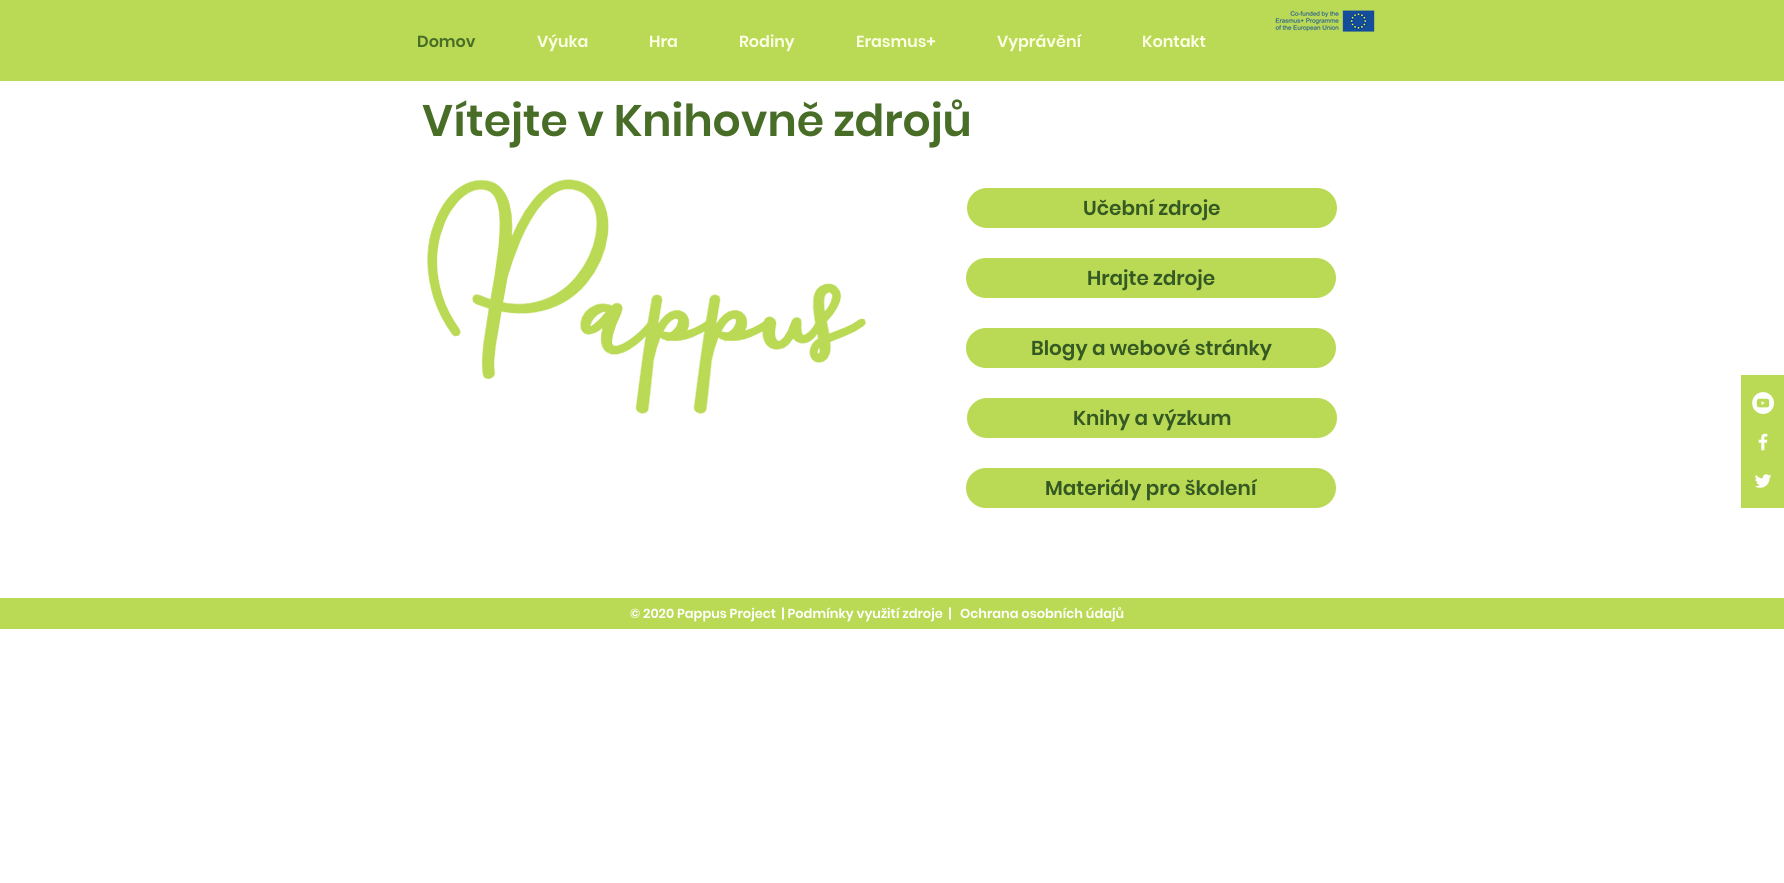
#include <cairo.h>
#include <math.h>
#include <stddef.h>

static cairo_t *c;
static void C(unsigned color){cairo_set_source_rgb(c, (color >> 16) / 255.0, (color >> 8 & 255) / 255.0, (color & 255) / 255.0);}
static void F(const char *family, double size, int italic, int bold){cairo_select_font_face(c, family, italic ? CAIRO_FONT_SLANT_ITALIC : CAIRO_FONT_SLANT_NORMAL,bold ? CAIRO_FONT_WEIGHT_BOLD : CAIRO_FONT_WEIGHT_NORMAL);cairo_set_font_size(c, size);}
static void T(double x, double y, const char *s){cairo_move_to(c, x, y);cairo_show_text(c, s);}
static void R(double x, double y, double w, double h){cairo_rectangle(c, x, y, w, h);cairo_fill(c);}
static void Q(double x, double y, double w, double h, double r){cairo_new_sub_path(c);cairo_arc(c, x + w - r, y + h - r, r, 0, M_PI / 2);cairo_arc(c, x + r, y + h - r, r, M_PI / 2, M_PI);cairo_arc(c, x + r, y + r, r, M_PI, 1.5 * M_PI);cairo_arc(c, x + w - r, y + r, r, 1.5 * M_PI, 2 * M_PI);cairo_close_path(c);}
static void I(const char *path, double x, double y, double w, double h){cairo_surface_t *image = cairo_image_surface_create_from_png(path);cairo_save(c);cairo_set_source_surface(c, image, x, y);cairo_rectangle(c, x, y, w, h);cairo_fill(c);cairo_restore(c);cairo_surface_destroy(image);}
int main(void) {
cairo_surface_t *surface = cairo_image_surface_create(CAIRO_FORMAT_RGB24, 1784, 883);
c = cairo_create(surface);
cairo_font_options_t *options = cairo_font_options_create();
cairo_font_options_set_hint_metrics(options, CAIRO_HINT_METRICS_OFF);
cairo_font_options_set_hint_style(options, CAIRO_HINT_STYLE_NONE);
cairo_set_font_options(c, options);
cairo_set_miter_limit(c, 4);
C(0xffffff);
cairo_paint(c);
C(0xbada55);
R(0,0,1784,81);
I("1.png",1275,10,100,22);
F("Poppins SemiBold",16,0,0);
C(0x486d27);
T(417,47,"Domov");
C(0xfcffe6);
T(537,47,"Výuka");
T(649,47,"Hra");
T(739,47,"Rodiny");
T(856,47,"Erasmus+");
T(997,47,"Vyprávění");
T(1142,47,"Kontakt");
F("Poppins SemiBold",44,0,0);
C(0x486d27);
T(422,136,"Vítejte v Knihovně zdrojů");
I("2.png",426,179,440,235);
C(0xbada55);
Q(967,188,370,40,20);
cairo_fill(c);
F("Poppins SemiBold",20,0,0);
C(0x355923);
T(1083,215,"Učební zdroje");
C(0xbada55);
Q(966,258,370,40,20);
cairo_fill(c);
C(0x355923);
T(1087,285,"Hrajte zdroje");
C(0xbada55);
Q(966,328,370,40,20);
cairo_fill(c);
C(0x355923);
T(1031,355,"Blogy a webové stránky");
C(0xbada55);
Q(967,398,370,40,20);
cairo_fill(c);
C(0x355923);
T(1073,425,"Knihy a výzkum");
C(0xbada55);
Q(966,468,370,40,20);
cairo_fill(c);
C(0x355923);
T(1045,495,"Materiály pro školení");
C(0xbada55);
R(1741,375,43,133);
I("3.png",1752,392,22,22);
I("4.png",1758,433,10,18);
I("5.png",1755,474,17,14);
R(0,598,1784,31);
F("Poppins SemiBold",13,0,0);
C(0xffffff);
T(630,618,"© 2020 Pappus Project  | Podmínky využití zdroje  |");
T(960,618,"Ochrana osobních údajů");
cairo_surface_write_to_png(surface, "o.png");
cairo_font_options_destroy(options);
cairo_destroy(c);
cairo_surface_destroy(surface);
return 0;
}
